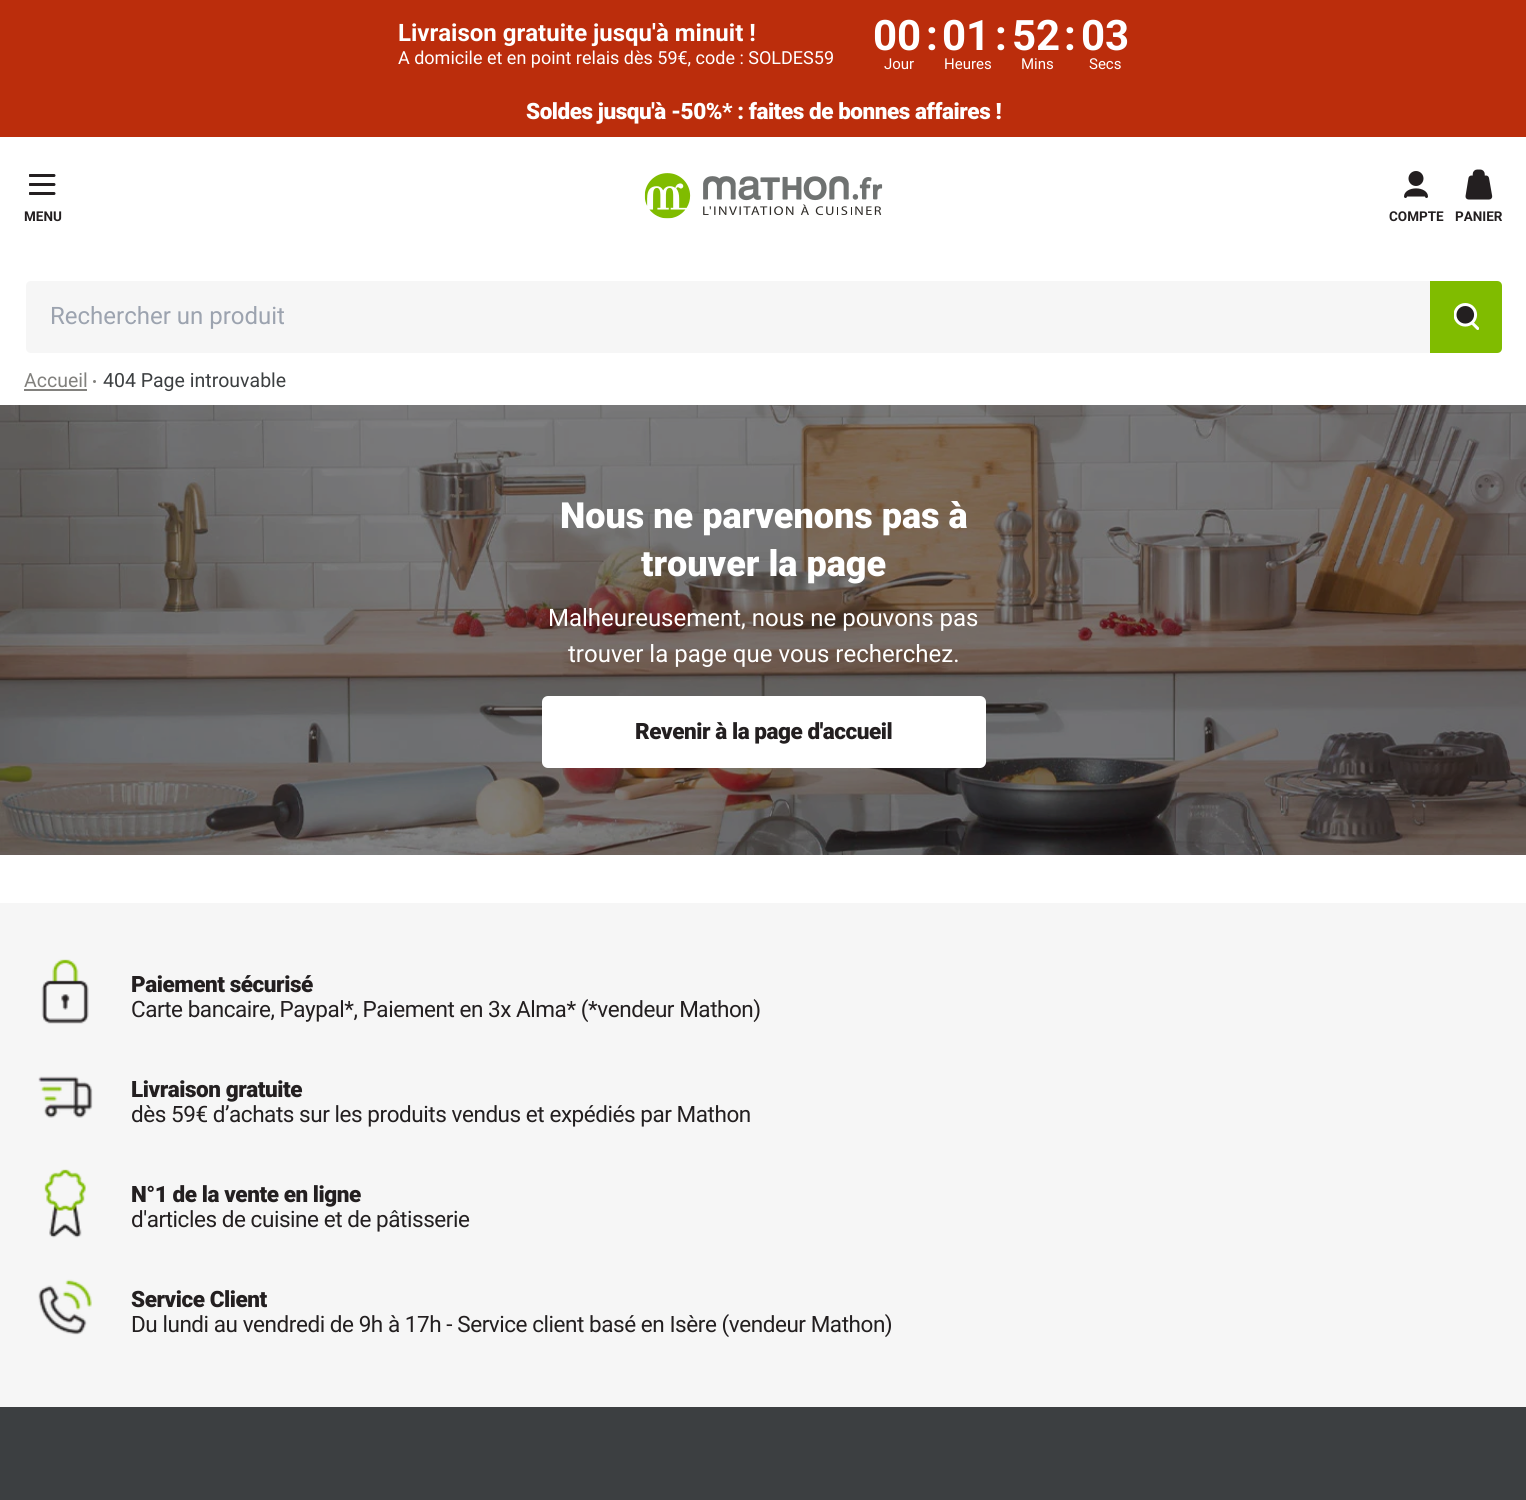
#include <cairo.h>
#include <math.h>
#include <stddef.h>

static cairo_t *c;
static void C(unsigned color){cairo_set_source_rgb(c, (color >> 16) / 255.0, (color >> 8 & 255) / 255.0, (color & 255) / 255.0);}
static void F(const char *family, double size, int italic, int bold){cairo_select_font_face(c, family, italic ? CAIRO_FONT_SLANT_ITALIC : CAIRO_FONT_SLANT_NORMAL,bold ? CAIRO_FONT_WEIGHT_BOLD : CAIRO_FONT_WEIGHT_NORMAL);cairo_set_font_size(c, size);}
static void T(double x, double y, const char *s){cairo_move_to(c, x, y);cairo_show_text(c, s);}
static void L(double x, double y, const char *s, double letter, double word){cairo_move_to(c, x, y);while (*s) {char ch[5] = {0};int n = 0;do ch[n++] = *s++; while ((*s & 0xC0) == 0x80);cairo_show_text(c, ch);cairo_rel_move_to(c, letter + word * (*ch == ' '), 0);}}
static void R(double x, double y, double w, double h){cairo_rectangle(c, x, y, w, h);cairo_fill(c);}
static void Q(double x, double y, double w, double h, double r){cairo_new_sub_path(c);cairo_arc(c, x + w - r, y + h - r, r, 0, M_PI / 2);cairo_arc(c, x + r, y + h - r, r, M_PI / 2, M_PI);cairo_arc(c, x + r, y + r, r, M_PI, 1.5 * M_PI);cairo_arc(c, x + w - r, y + r, r, 1.5 * M_PI, 2 * M_PI);cairo_close_path(c);}
static void I(const char *path, double x, double y, double w, double h){cairo_surface_t *image = cairo_image_surface_create_from_png(path);cairo_save(c);cairo_set_source_surface(c, image, x, y);cairo_rectangle(c, x, y, w, h);cairo_fill(c);cairo_restore(c);cairo_surface_destroy(image);}
int main(void) {
cairo_surface_t *surface = cairo_image_surface_create(CAIRO_FORMAT_RGB24, 1526, 1500);
c = cairo_create(surface);
cairo_font_options_t *options = cairo_font_options_create();
cairo_font_options_set_hint_metrics(options, CAIRO_HINT_METRICS_OFF);
cairo_font_options_set_hint_style(options, CAIRO_HINT_STYLE_NONE);
cairo_set_font_options(c, options);
cairo_set_miter_limit(c, 4);
C(0xffffff);
cairo_paint(c);
C(0xbb2d0c);
R(0,0,1526,137);
F("Roboto",24,0,1);
C(0xffffff);
T(398,41,"Livraison gratuite jusqu'à minuit !");
F("Roboto",18,0,0);
T(398,64,"A domicile et en point relais dès 59€, code : SOLDES59");
F("Roboto",42,0,1);
T(873,50,"00");
T(926,50,":");
T(942,50,"01");
T(995,50,":");
T(1012,50,"52");
T(1064,50,":");
T(1081,50,"03");
F("Roboto",15,0,0);
T(884,69,"Jour");
T(944,69,"Heures");
T(1021,69,"Mins");
T(1089,69,"Secs");
F("Roboto Black",22.5,0,0);
L(526,119,"Soldes jusqu'à -50%* : faites de bonnes affaires !",-.45,0);
I("1.png",29,174,27,21);
F("Roboto",13.5,0,1);
C(0x231f20);
T(24,221,"MENU");
I("2.png",644,173,239,46);
I("3.png",1404,171,24,27);
T(1389,221,"COMPTE");
I("4.png",1465,169,28,31);
T(1455,221,"PANIER");
C(0xf6f6f6);
cairo_new_path(c);
cairo_move_to(c,31,281);
cairo_line_to(c,1430,281);
cairo_line_to(c,1430,353);
cairo_line_to(c,31,353);
cairo_curve_to(c,28,353,26,351,26,348);
cairo_line_to(c,26,286);
cairo_curve_to(c,26,283,28,281,31,281);
cairo_close_path(c);
cairo_fill(c);
F("Roboto",24,0,0);
C(0x9ca3af);
T(50,324,"Rechercher un produit");
C(0x80bc00);
cairo_new_path(c);
cairo_move_to(c,1430,281);
cairo_line_to(c,1497,281);
cairo_curve_to(c,1500,281,1502,283,1502,286);
cairo_line_to(c,1502,348);
cairo_curve_to(c,1502,351,1500,353,1497,353);
cairo_line_to(c,1430,353);
cairo_close_path(c);
cairo_fill(c);
I("5.png",1454,303,25,27);
F("Roboto",19.5,0,0);
C(0x82817e);
T(24,387,"Accueil");
R(24,389,63,2);
cairo_new_path(c);
cairo_arc(c,94.5,381.5,1.5,0,2 * M_PI);
cairo_fill(c);
C(0x3c3f41);
T(103,387,"404 Page introuvable");
I("6.png",0,405,1526,450);
F("Roboto Black",36,0,0);
C(0xffffff);
T(560,528,"Nous ne parvenons pas à");
T(641,576,"trouver la page");
F("Roboto",24,0,0);
T(548,626,"Malheureusement, nous ne pouvons pas");
T(568,662,"trouver la page que vous recherchez.");
Q(542,696,444,72,6);
cairo_fill(c);
F("Roboto Black",22.5,0,0);
C(0x231f20);
L(635,739,"Revenir à la page d'accueil",-.45,0);
C(0xf6f6f6);
R(0,903,1526,504);
I("7.png",41,959,48,65);
C(0x231f20);
L(131,992,"Paiement sécurisé",-.45,0);
F("Roboto",22.5,0,0);
L(131,1017,"Carte bancaire, Paypal*, Paiement en 3x Alma* (*vendeur Mathon)",-.45,0);
I("8.png",38,1076,55,42);
F("Roboto Black",22.5,0,0);
L(131,1097,"Livraison gratuite",-.45,0);
F("Roboto",22.5,0,0);
L(131,1122,"dès 59€ d’achats sur les produits vendus et expédiés par Mathon",-.45,0);
I("9.png",44,1169,42,69);
F("Roboto Black",22.5,0,0);
L(131,1202,"N°1 de la vente en ligne",-.45,0);
F("Roboto",22.5,0,0);
L(131,1227,"d'articles de cuisine et de pâtisserie",-.45,0);
I("10.png",38,1279,54,56);
F("Roboto Black",22.5,0,0);
L(131,1307,"Service Client",-.45,0);
F("Roboto",22.5,0,0);
L(131,1332,"Du lundi au vendredi de 9h à 17h - Service client basé en Isère (vendeur Mathon)",-.45,0);
C(0x3c3f41);
R(0,1407,1526,93);
cairo_surface_write_to_png(surface, "o.png");
cairo_font_options_destroy(options);
cairo_destroy(c);
cairo_surface_destroy(surface);
return 0;
}
